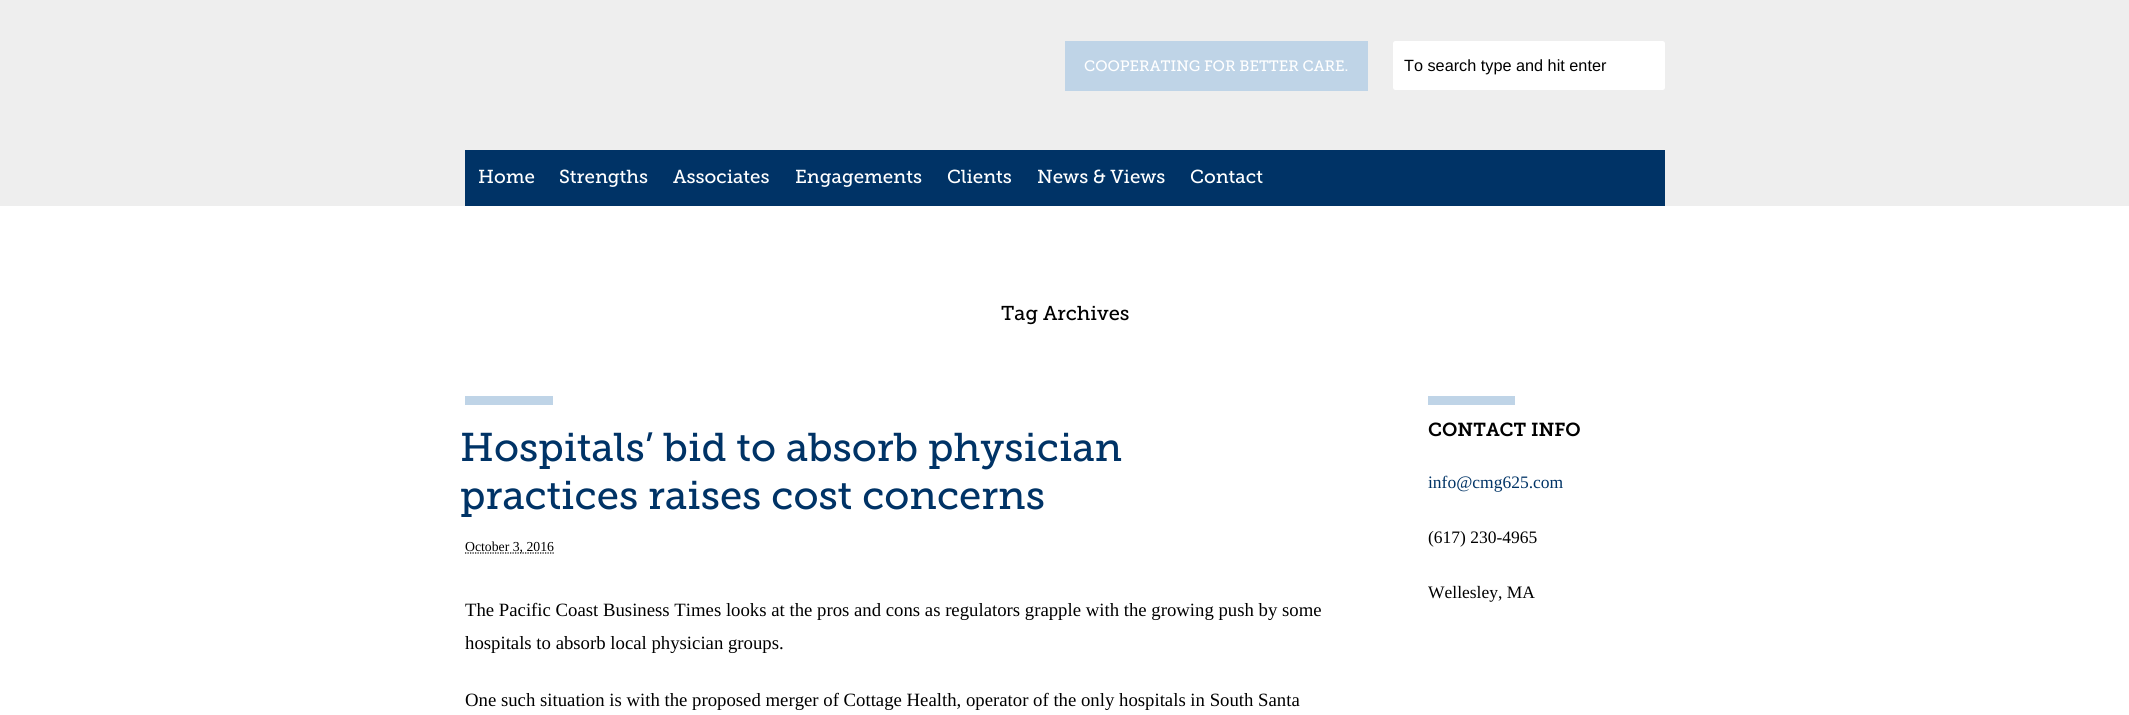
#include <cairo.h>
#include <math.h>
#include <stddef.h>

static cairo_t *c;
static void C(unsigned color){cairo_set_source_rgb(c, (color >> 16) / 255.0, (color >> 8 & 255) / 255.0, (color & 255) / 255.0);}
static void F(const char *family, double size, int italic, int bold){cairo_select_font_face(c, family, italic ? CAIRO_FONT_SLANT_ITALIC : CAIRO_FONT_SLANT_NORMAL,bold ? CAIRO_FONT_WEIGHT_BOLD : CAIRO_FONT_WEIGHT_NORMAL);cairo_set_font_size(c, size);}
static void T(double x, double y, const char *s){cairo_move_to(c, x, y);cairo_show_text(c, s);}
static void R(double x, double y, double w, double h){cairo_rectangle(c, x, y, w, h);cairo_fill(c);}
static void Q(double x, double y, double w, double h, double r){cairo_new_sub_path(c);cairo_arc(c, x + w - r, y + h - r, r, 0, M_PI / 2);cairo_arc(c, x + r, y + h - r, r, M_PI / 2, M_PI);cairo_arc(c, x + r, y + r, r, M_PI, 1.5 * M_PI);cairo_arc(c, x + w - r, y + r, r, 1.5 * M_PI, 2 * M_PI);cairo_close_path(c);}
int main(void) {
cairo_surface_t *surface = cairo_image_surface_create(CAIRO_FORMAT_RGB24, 2129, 715);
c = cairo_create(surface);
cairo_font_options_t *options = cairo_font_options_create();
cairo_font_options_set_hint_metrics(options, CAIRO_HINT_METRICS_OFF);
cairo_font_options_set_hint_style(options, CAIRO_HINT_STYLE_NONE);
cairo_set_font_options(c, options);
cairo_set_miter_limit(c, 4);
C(0xffffff);
cairo_paint(c);
C(0xeeeeee);
R(0,0,2129,206);
C(0xbfd4e7);
R(1065,41,303,50);
F("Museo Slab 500",15,0,0);
C(0xffffff);
T(1084,71,"COOPERATING FOR BETTER CARE.");
Q(1393,41,272,49,2.5);
cairo_fill(c);
F("Liberation Sans",16.25,0,0);
C(0x000000);
T(1404,71,"To search type and hit enter");
C(0x003366);
R(465,150,1200,56);
F("Museo Slab 500",18.75,0,0);
C(0xffffff);
T(478,183,"Home");
T(559,183,"Strengths");
T(673,183,"Associates");
T(795,183,"Engagements");
T(947,183,"Clients");
T(1037,183,"News & Views");
T(1190,183,"Contact");
F("Museo Slab 500",20,0,0);
C(0x000000);
T(1001,320,"Tag Archives");
C(0xbfd4e7);
R(465,396,88,9);
F("Museo Slab 500",40,0,0);
C(0x003366);
T(460,461,"Hospitals’ bid to absorb physician");
T(460,509,"practices raises cost concerns");
cairo_new_path(c);
cairo_move_to(c,465,553);
cairo_line_to(c,554,553);
C(0x000000);
cairo_set_line_width(c,1.2);
cairo_set_dash(c,(double[]){1.25,1.25},2,0);
cairo_stroke(c);
F("Liberation Serif",13.75,0,0);
T(465,551,"October 3, 2016");
F("Liberation Serif",18.75,0,0);
T(465,616,"The Pacific Coast Business Times looks at the pros and cons as regulators grapple with the growing push by some");
T(465,649,"hospitals to absorb local physician groups.");
T(465,706,"One such situation is with the proposed merger of Cottage Health, operator of the only hospitals in South Santa");
C(0xbfd4e7);
R(1428,396,87,9);
F("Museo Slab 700 SemiBold",18.75,0,0);
C(0x000000);
T(1428,436,"CONTACT INFO");
F("Liberation Serif",17.5,0,0);
C(0x003366);
T(1428,488,"info@cmg625.com");
C(0x000000);
T(1428,543,"(617) 230-4965");
T(1428,598,"Wellesley, MA");
cairo_surface_write_to_png(surface, "o.png");
cairo_font_options_destroy(options);
cairo_destroy(c);
cairo_surface_destroy(surface);
return 0;
}
